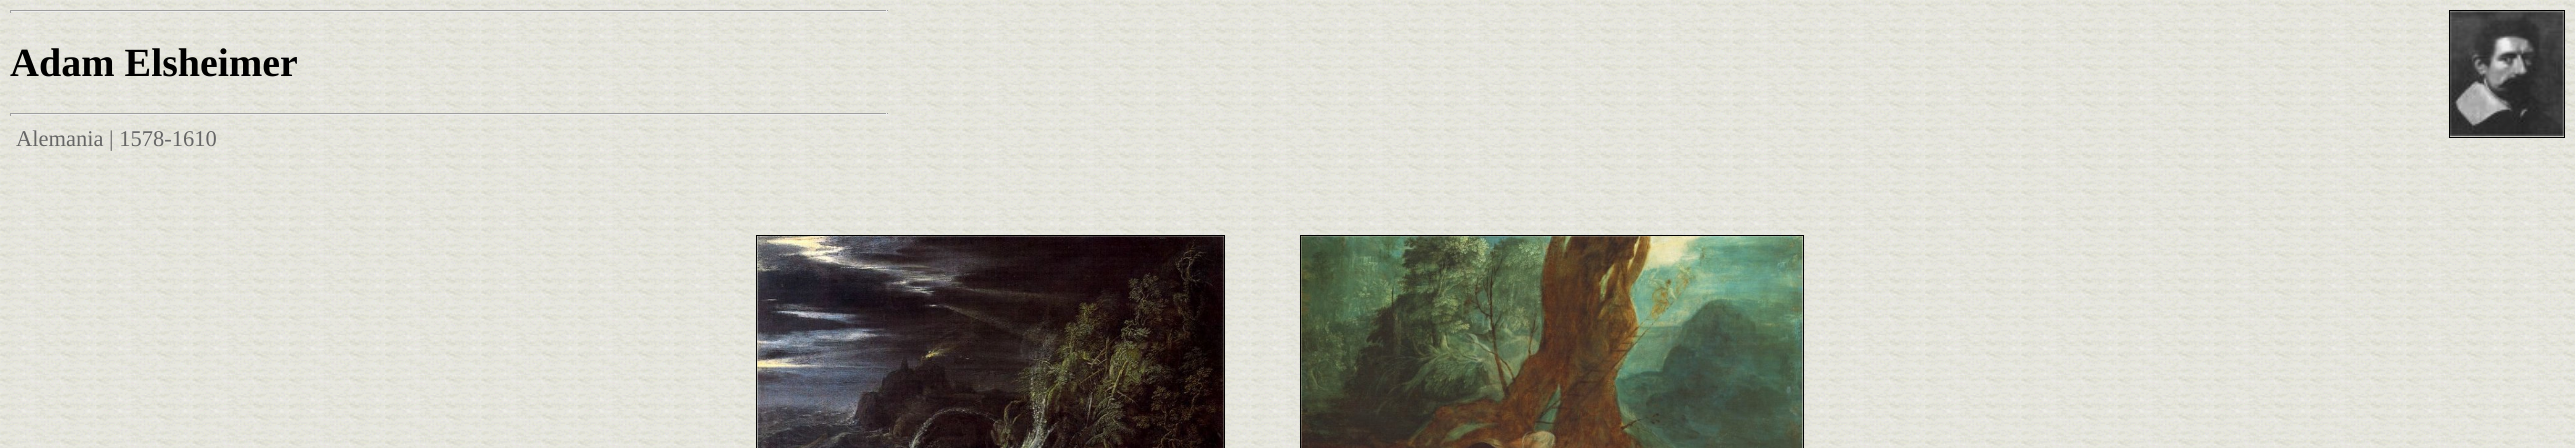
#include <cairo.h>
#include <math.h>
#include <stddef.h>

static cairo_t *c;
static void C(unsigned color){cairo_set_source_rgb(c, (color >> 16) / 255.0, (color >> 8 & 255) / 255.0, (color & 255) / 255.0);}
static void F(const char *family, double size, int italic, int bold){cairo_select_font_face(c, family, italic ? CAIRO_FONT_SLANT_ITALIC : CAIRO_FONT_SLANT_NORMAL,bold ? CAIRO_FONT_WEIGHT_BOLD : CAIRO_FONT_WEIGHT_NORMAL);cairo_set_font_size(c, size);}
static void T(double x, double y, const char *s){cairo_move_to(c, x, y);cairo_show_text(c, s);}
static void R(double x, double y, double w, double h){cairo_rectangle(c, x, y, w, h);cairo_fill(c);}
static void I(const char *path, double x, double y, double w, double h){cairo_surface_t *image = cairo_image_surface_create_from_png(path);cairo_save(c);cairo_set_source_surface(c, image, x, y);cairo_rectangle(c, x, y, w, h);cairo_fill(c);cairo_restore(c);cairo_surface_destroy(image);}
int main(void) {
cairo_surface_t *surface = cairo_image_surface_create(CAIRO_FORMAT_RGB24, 2575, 448);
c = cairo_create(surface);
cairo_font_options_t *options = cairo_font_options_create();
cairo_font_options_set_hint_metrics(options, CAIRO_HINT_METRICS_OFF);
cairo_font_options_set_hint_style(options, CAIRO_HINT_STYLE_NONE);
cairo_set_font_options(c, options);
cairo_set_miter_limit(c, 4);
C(0xffffff);
cairo_paint(c);
I("1.png",0,0,2575,448);
C(0x9f9f9f);
R(10,10,878,1);
C(0xeeeeee);
R(886,10,1,3);
R(10,11,878,1);
C(0x9f9f9f);
R(10,10,1,3);
cairo_rectangle(c,2449.5,10.5,115,127);
C(0x000000);
cairo_set_line_width(c,1);
cairo_stroke(c);
I("2.png",2450,11,114,126);
F("Liberation Serif",40,0,1);
T(10,76,"Adam Elsheimer");
C(0x9f9f9f);
R(10,113,878,1);
C(0xeeeeee);
R(886,113,1,3);
R(10,114,878,1);
C(0x9f9f9f);
R(10,113,1,3);
F("Liberation Serif",22.5,0,0);
C(0x666666);
T(16,146,"Alemania | 1578-1610");
cairo_rectangle(c,756.5,235.5,468,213);
C(0x000000);
cairo_stroke(c);
I("3.png",757,236,467,212);
cairo_rectangle(c,1300.5,235.5,503,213);
cairo_stroke(c);
I("4.png",1301,236,502,212);
cairo_surface_write_to_png(surface, "o.png");
cairo_font_options_destroy(options);
cairo_destroy(c);
cairo_surface_destroy(surface);
return 0;
}
